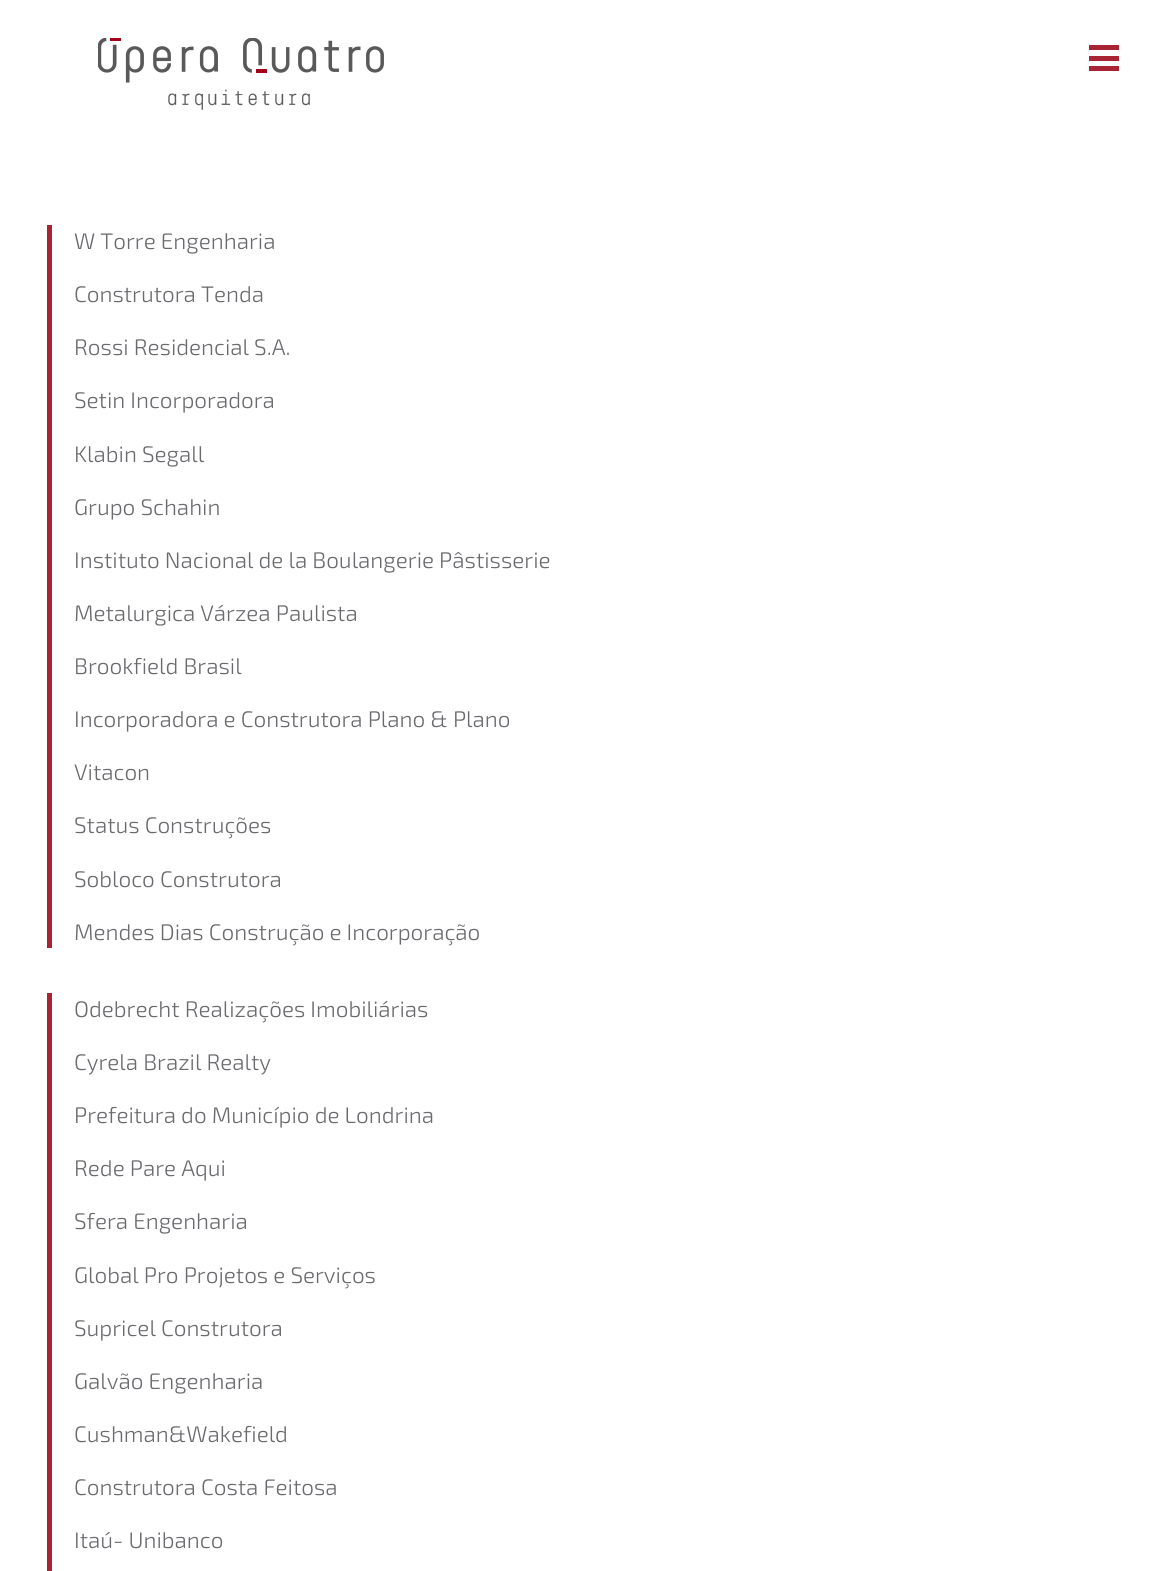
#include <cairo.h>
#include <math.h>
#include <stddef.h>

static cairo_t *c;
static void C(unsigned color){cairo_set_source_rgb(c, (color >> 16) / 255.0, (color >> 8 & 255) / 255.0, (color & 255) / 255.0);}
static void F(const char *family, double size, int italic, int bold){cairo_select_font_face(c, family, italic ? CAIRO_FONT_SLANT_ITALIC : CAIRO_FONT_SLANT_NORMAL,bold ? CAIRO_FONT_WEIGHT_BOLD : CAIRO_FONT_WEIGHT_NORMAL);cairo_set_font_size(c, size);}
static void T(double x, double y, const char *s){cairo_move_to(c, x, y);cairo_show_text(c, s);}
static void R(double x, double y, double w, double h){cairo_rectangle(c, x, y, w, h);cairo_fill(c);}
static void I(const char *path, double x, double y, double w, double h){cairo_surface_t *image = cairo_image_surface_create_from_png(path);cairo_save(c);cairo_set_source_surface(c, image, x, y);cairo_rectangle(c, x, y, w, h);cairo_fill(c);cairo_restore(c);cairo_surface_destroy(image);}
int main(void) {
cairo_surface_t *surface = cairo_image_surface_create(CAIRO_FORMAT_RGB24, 1149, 1571);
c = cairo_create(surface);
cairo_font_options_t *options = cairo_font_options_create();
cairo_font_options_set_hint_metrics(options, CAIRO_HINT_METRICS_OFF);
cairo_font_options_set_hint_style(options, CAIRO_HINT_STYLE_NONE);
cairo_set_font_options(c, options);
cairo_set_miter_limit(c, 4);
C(0xffffff);
cairo_paint(c);
I("1.png",98,38,286,72);
C(0xa82334);
R(1089,45,30,5);
R(1089,56,30,5);
R(1089,66,30,5);
R(47,225,5,723);
F("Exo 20 Light",22.5,0,0);
C(0x6a6a6e);
T(74,249,"W Torre Engenharia");
T(74,302,"Construtora Tenda");
T(74,355,"Rossi Residencial S.A.");
T(74,408,"Setin Incorporadora");
T(74,462,"Klabin Segall");
T(74,515,"Grupo Schahin");
T(74,568,"Instituto Nacional de la Boulangerie Pâstisserie");
T(74,621,"Metalurgica Várzea Paulista");
T(74,674,"Brookfield Brasil");
T(74,727,"Incorporadora e Construtora Plano & Plano");
T(74,780,"Vitacon");
T(74,833,"Status Construções");
T(74,887,"Sobloco Construtora");
T(74,940,"Mendes Dias Construção e Incorporação");
C(0xa82334);
R(47,993,5,578);
C(0x6a6a6e);
T(74,1017,"Odebrecht Realizações Imobiliárias");
T(74,1070,"Cyrela Brazil Realty");
T(74,1123,"Prefeitura do Município de Londrina");
T(74,1176,"Rede Pare Aqui");
T(74,1229,"Sfera Engenharia");
T(74,1283,"Global Pro Projetos e Serviços");
T(74,1336,"Supricel Construtora");
T(74,1389,"Galvão Engenharia");
T(74,1442,"Cushman&Wakefield");
T(74,1495,"Construtora Costa Feitosa");
T(74,1548,"Itaú- Unibanco");
cairo_surface_write_to_png(surface, "o.png");
cairo_font_options_destroy(options);
cairo_destroy(c);
cairo_surface_destroy(surface);
return 0;
}
